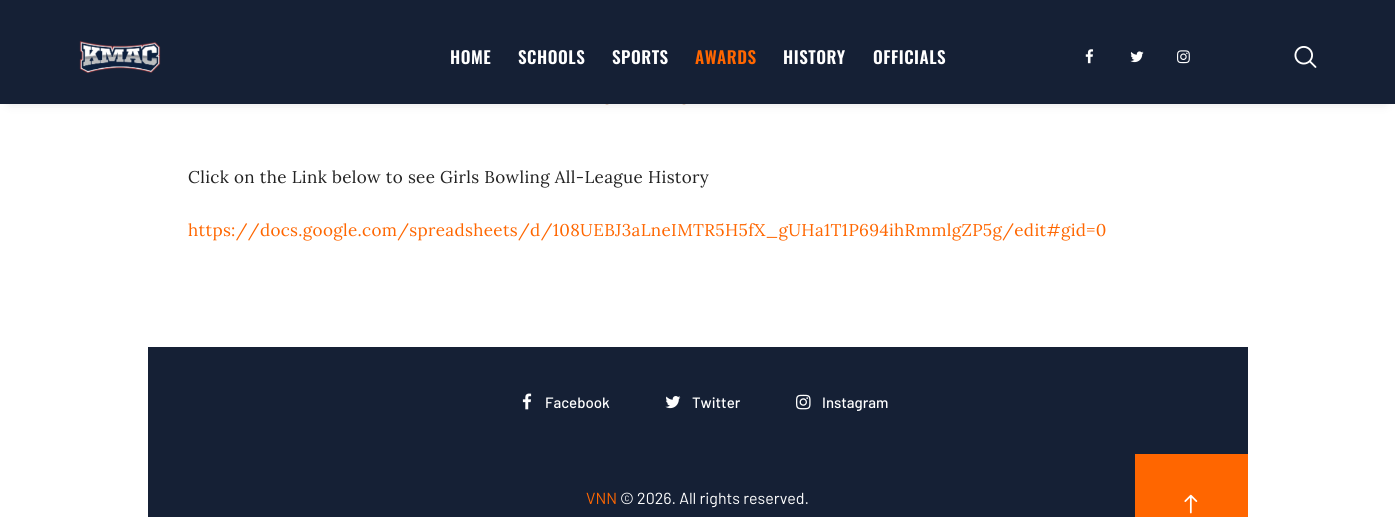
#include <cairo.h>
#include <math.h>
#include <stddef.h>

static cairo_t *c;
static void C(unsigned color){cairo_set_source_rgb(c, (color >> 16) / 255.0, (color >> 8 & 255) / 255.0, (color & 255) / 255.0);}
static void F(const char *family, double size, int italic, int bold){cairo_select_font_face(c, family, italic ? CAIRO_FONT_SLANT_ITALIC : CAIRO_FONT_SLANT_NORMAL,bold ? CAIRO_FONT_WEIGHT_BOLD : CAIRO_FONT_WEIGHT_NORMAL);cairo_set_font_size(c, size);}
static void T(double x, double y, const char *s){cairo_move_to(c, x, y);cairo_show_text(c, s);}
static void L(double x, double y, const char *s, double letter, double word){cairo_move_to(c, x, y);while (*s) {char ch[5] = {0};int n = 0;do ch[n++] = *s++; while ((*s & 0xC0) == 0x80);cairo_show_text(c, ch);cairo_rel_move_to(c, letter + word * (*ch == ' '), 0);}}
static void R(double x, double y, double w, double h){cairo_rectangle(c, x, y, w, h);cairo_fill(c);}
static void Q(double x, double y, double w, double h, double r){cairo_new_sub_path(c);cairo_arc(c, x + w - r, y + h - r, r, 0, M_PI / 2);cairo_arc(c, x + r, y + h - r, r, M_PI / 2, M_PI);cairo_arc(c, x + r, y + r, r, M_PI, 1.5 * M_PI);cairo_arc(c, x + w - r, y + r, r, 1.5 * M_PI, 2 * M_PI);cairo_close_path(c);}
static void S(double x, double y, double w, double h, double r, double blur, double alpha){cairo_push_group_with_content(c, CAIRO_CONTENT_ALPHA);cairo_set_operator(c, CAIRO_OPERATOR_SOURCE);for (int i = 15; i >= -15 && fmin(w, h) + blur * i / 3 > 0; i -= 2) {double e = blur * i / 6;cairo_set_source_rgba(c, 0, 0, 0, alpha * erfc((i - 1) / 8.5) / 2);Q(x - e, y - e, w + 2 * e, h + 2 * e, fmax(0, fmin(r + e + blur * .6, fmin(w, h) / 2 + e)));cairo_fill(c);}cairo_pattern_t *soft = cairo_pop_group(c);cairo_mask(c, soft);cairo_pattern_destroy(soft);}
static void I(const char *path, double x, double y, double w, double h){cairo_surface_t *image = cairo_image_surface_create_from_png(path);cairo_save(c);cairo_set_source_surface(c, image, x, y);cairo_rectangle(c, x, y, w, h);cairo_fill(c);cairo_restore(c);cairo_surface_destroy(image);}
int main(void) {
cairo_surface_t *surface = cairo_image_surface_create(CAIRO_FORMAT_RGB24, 1395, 517);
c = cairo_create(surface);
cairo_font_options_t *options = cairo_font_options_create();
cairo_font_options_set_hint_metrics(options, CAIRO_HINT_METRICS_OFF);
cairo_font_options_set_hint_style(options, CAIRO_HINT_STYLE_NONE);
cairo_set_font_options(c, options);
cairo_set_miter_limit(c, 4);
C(0xffffff);
cairo_paint(c);
C(0xe8d4c2);
cairo_arc(c,607,103,2,0,2 * M_PI);
cairo_fill(c);
cairo_arc(c,684,103,2,0,2 * M_PI);
cairo_fill(c);
C(0x000000);
S(10,17,1375,84,0,6,.2);
C(0x152035);
R(0,0,1395,104);
I("1.png",79,40,82,33);
F("Oswald SemiBold",17,0,0);
C(0xffffff);
L(450,64,"HOME",.5,0);
L(518,64,"SCHOOLS",.5,0);
L(612,64,"SPORTS",.5,0);
C(0xff6600);
L(695,64,"AWARDS",.5,0);
C(0xffffff);
L(783,64,"HISTORY",.5,0);
L(873,64,"OFFICIALS",.5,0);
I("2.png",1085,49,9,15);
I("3.png",1130,51,14,12);
I("4.png",1177,50,13,14);
I("5.png",1294,46,23,22);
F("Lora",17,0,0);
C(0x222222);
L(188,183,"Click on the Link below to see Girls Bowling All-League History",.35,0);
C(0xff6600);
L(188,236,"https://docs.google.com/spreadsheets/d/108UEBJ3aLneIMTR5H5fX_gUHa1T1P694ihRmmlgZP5g/edit#gid=0",.35,0);
C(0x152035);
R(148,347,1100,107);
I("6.png",522,393,10,17);
F("Barlow Medium",15,0,0);
C(0xffffff);
T(545,408,"Facebook");
I("7.png",665,396,16,13);
T(692,408,"Twitter");
I("8.png",796,394,15,16);
T(822,408,"Instagram");
C(0x152035);
R(148,454,987,63);
F("Barlow",16,0,0);
C(0xff6600);
T(586,504,"VNN");
C(0xffffff);
T(620,504,"© 2026. All rights reserved.");
C(0xff6600);
R(1135,454,113,63);
I("9.png",1184,494,14,20);
cairo_surface_write_to_png(surface, "o.png");
cairo_font_options_destroy(options);
cairo_destroy(c);
cairo_surface_destroy(surface);
return 0;
}
